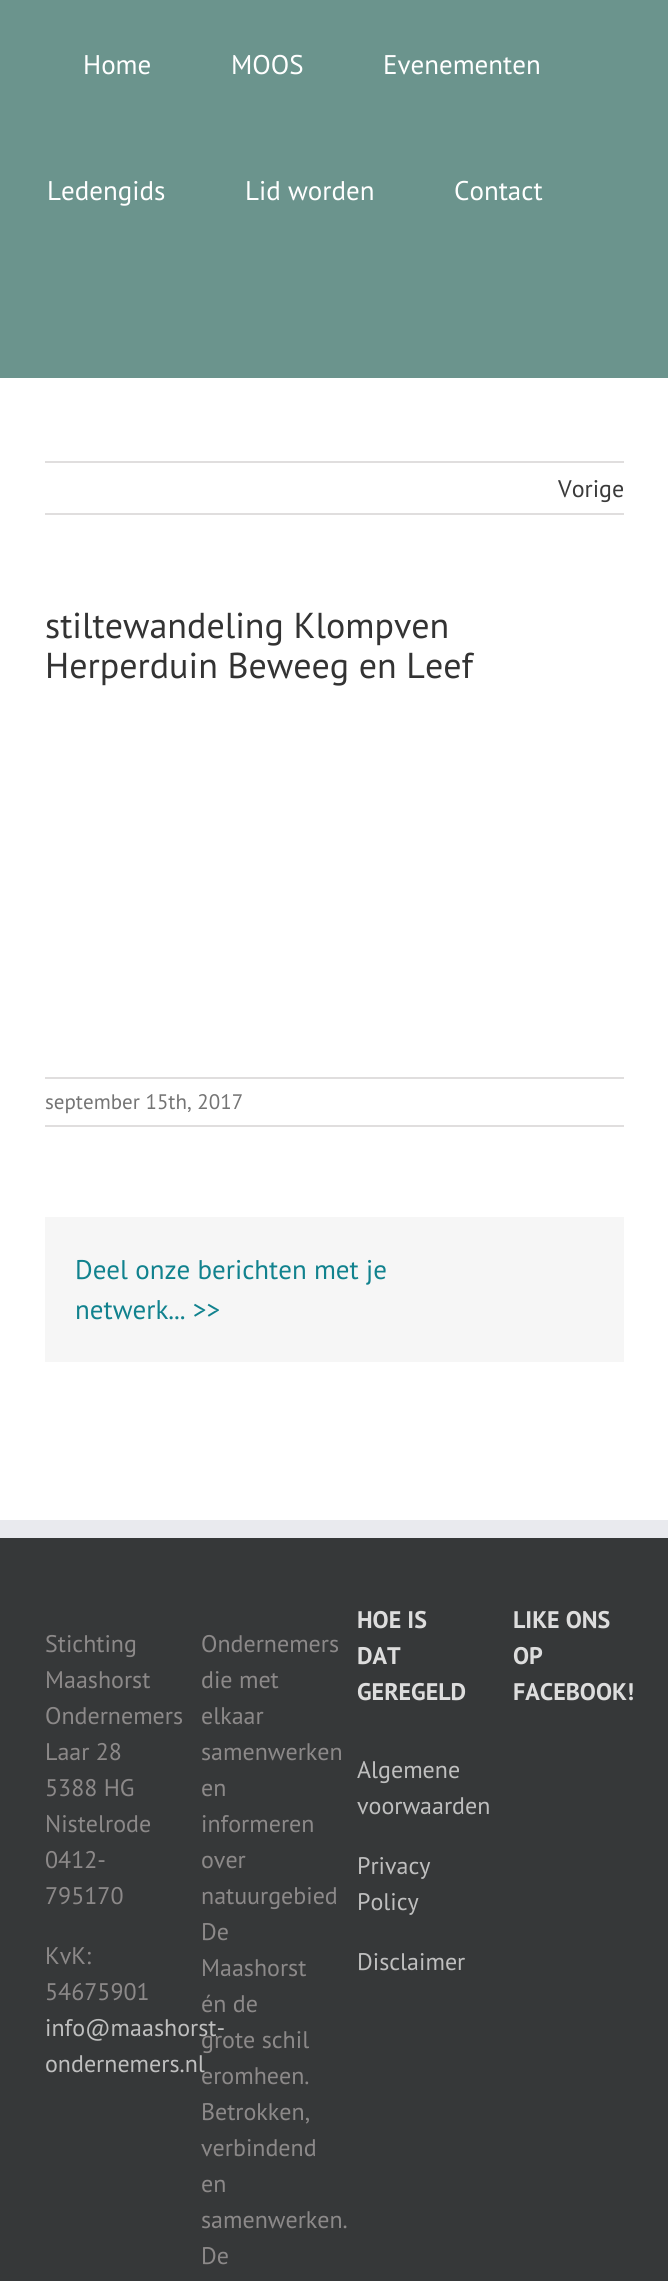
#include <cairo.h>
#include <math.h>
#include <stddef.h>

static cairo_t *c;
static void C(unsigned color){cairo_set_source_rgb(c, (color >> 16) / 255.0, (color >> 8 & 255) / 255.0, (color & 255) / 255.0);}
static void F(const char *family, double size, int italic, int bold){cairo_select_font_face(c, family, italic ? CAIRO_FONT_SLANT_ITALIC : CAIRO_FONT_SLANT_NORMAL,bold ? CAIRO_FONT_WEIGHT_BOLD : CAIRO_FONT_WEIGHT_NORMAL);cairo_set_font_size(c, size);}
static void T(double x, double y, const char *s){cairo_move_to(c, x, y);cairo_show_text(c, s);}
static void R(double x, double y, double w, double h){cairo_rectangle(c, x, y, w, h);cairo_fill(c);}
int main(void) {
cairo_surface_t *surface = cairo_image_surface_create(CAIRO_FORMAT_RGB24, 668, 2281);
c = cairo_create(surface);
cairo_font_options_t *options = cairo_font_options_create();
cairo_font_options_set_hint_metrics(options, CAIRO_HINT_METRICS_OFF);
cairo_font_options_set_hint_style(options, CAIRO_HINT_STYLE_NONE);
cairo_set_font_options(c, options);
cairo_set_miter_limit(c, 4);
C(0xffffff);
cairo_paint(c);
C(0x6b948d);
R(0,0,668,378);
F("PT Sans",27,0,0);
C(0xffffff);
T(83,74,"Home");
T(231,74,"MOOS");
T(383,74,"Evenementen");
T(47,200,"Ledengids");
T(245,200,"Lid worden");
T(454,200,"Contact");
C(0xe0dede);
R(45,461,579,2);
R(45,513,579,2);
F("PT Sans",24,0,0);
C(0x3a3a3a);
T(558,497,"Vorige");
F("PT Sans",36,0,0);
C(0x333333);
T(45,638,"stiltewandeling Klompven");
T(45,678,"Herperduin Beweeg en Leef");
C(0xe0dede);
R(45,1077,579,2);
R(45,1125,579,2);
F("PT Sans",21,0,0);
C(0x747474);
T(45,1109,"september 15th, 2017");
C(0xf6f6f6);
R(45,1217,579,145);
F("PT Sans",27,0,0);
C(0x11828e);
T(75,1279,"Deel onze berichten met je");
T(75,1319,"netwerk... >>");
C(0x363839);
R(0,1538,668,743);
C(0xe9eaee);
R(0,1520,668,18);
F("PT Sans",24,0,0);
C(0x8c8989);
T(45,1652,"Stichting");
T(45,1688,"Maashorst");
T(45,1724,"Ondernemers");
T(45,1760,"Laar 28");
T(45,1796,"5388 HG");
T(45,1832,"Nistelrode");
T(45,1868,"0412-");
T(45,1904,"795170");
T(45,1964,"KvK:");
T(45,2000,"54675901");
C(0xbfbfbf);
T(45,2036,"info@maashorst-");
T(45,2072,"ondernemers.nl");
C(0x8c8989);
T(201,1652,"Ondernemers");
T(201,1688,"die met");
T(201,1724,"elkaar");
T(201,1760,"samenwerken");
T(201,1796,"en");
T(201,1832,"informeren");
T(201,1868,"over");
T(201,1904,"natuurgebied");
T(201,1940,"De");
T(201,1976,"Maashorst");
T(201,2012,"én de");
T(201,2048,"grote schil");
T(201,2084,"eromheen.");
T(201,2120,"Betrokken,");
T(201,2156,"verbindend");
T(201,2192,"en");
T(201,2228,"samenwerken.");
T(201,2264,"De");
F("PT Sans",24,0,1);
C(0xdddddd);
T(357,1628,"HOE IS");
T(357,1664,"DAT");
T(357,1700,"GEREGELD");
F("PT Sans",24,0,0);
C(0xbfbfbf);
T(357,1778,"Algemene");
T(357,1814,"voorwaarden");
T(357,1874,"Privacy");
T(357,1910,"Policy");
T(357,1970,"Disclaimer");
F("PT Sans",24,0,1);
C(0xdddddd);
T(513,1628,"LIKE ONS");
T(513,1664,"OP");
T(513,1700,"FACEBOOK!");
cairo_surface_write_to_png(surface, "o.png");
cairo_font_options_destroy(options);
cairo_destroy(c);
cairo_surface_destroy(surface);
return 0;
}
